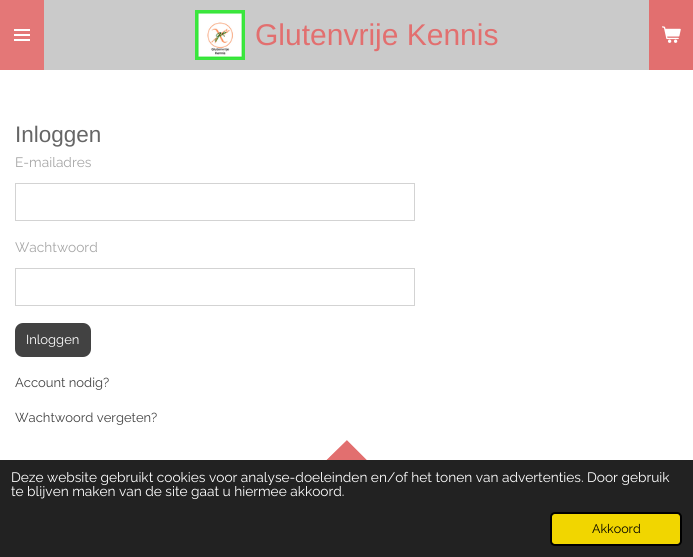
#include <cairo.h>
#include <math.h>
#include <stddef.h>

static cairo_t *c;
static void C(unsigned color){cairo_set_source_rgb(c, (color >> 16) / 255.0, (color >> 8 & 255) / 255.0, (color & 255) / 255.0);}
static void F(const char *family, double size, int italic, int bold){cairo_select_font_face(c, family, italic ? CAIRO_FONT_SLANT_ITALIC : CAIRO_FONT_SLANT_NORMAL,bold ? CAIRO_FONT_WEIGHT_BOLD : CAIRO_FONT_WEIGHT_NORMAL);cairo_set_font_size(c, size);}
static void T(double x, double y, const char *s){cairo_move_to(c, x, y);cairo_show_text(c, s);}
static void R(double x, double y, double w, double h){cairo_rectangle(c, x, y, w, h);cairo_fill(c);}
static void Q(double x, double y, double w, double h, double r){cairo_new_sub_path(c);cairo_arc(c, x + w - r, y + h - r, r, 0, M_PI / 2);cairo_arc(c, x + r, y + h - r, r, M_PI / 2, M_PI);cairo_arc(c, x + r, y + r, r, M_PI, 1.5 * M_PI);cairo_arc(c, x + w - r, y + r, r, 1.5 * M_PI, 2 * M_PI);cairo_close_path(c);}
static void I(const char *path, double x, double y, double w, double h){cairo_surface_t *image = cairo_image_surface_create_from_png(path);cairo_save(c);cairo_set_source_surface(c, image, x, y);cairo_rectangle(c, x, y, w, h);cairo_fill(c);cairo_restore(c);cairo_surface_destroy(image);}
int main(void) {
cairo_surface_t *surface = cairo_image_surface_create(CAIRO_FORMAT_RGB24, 693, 557);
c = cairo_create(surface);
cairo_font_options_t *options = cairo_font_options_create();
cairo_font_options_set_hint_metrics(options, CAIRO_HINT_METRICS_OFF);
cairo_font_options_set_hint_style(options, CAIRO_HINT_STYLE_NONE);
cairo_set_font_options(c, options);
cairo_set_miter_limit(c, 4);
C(0xffffff);
cairo_paint(c);
C(0xe47777);
R(0,0,44,70);
C(0xffffff);
R(14,34,16,2);
R(14,29,16,2);
R(14,39,16,2);
C(0xcacaca);
R(44,0,605,70);
I("1.png",195,10,50,50);
F("Liberation Sans",30,0,0);
C(0xe26f6f);
T(255,45,"Glutenvrije Kennis");
R(649,0,44,70);
I("2.png",662,26,19,17);
F("Liberation Sans",22.5,0,0);
C(0x666666);
T(15,142,"Inloggen");
F("Raleway",13.7,0,0);
C(0xa6a6a6);
T(15,167,"E-mailadres");
cairo_rectangle(c,15.5,183.5,399,37);
C(0xd3d3d3);
cairo_set_line_width(c,1);
cairo_stroke(c);
C(0xa6a6a6);
T(15,252,"Wachtwoord");
cairo_rectangle(c,15.5,268.5,399,37);
C(0xd3d3d3);
cairo_stroke(c);
C(0x424242);
Q(15,323,76,34,8);
cairo_fill(c);
F("Raleway",13,0,0);
C(0xffffff);
T(26,344,"Inloggen");
C(0x424242);
T(15,387,"Account nodig?");
T(15,422,"Wachtwoord vergeten?");
C(0xe26f6f);
cairo_new_path(c);
cairo_move_to(c,347,440);
cairo_line_to(c,382,475);
cairo_line_to(c,347,510);
cairo_line_to(c,311,475);
cairo_close_path(c);
cairo_fill(c);
cairo_new_path(c);
cairo_move_to(c,346.5,434.5);
cairo_line_to(c,387,475);
cairo_line_to(c,346.5,515.5);
cairo_line_to(c,306,475);
cairo_close_path(c);
C(0xffffff);
cairo_set_line_width(c,7);
cairo_stroke(c);
C(0x222222);
R(0,460,693,97);
F("Raleway",13.7,0,0);
C(0xffffff);
T(11,482,"Deze website gebruikt cookies voor analyse-doeleinden en/of het tonen van advertenties. Door gebruik");
T(11,496,"te blijven maken van de site gaat u hiermee akkoord.");
C(0xf1d600);
Q(551,513,130,32,4);
cairo_fill_preserve(c);
C(0x000000);
cairo_set_line_width(c,2);
cairo_stroke(c);
F("Raleway",12.5,0,0);
T(592,533,"Akkoord");
cairo_surface_write_to_png(surface, "o.png");
cairo_font_options_destroy(options);
cairo_destroy(c);
cairo_surface_destroy(surface);
return 0;
}
